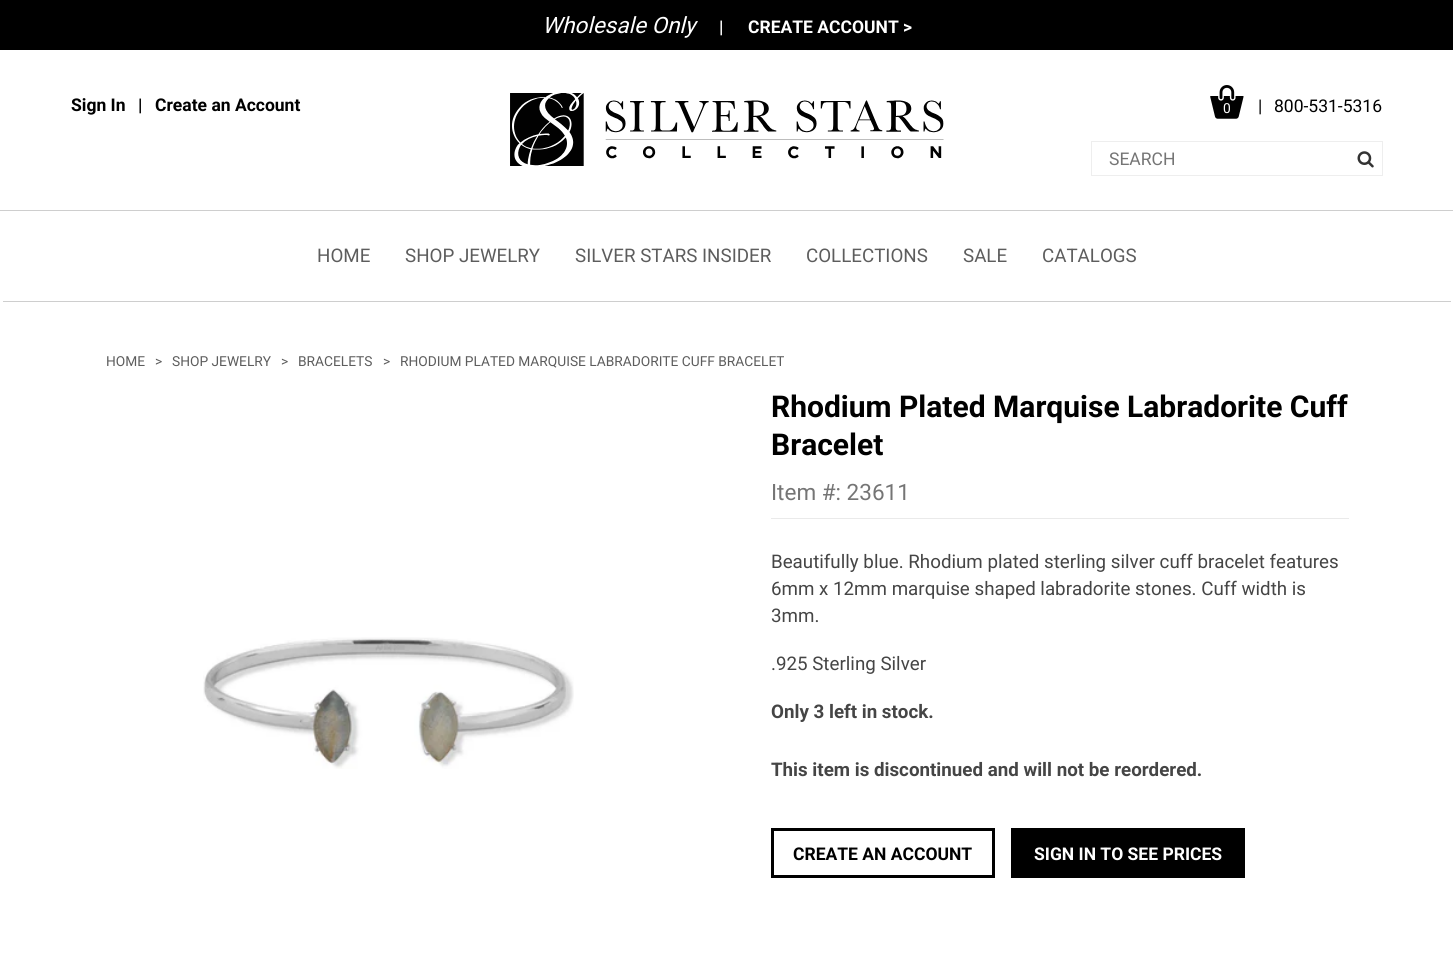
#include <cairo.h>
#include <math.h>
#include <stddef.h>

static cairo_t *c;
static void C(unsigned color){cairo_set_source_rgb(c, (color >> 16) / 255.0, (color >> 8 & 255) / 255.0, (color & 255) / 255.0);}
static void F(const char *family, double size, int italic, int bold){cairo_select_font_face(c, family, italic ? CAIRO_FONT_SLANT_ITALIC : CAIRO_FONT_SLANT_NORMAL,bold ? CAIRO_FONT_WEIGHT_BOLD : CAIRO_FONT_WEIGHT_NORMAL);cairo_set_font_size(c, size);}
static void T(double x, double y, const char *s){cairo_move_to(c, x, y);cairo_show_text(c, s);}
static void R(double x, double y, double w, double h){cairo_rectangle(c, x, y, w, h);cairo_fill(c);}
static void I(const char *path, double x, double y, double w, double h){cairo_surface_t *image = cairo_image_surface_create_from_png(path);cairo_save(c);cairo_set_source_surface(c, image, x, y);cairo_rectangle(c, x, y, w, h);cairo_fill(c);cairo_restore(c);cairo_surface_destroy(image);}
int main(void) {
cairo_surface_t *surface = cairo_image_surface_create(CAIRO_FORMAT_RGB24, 1453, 969);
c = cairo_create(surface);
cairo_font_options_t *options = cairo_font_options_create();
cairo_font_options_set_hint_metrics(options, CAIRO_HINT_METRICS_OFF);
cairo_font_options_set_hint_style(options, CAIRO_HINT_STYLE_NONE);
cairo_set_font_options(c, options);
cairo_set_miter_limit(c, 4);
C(0xffffff);
cairo_paint(c);
C(0x000000);
R(0,0,1453,50);
F("Roboto",22.5,1,0);
C(0xffffff);
T(542,33,"Wholesale Only");
F("Roboto",17.5,0,1);
T(719,33,"|");
T(748,33,"CREATE ACCOUNT >");
C(0xcecece);
R(0,210,1453,1);
C(0x000000);
T(71,111,"Sign In");
T(138,111,"|");
T(155,111,"Create an Account");
I("1.png",510,93,434,73);
I("2.png",1210,85,34,34);
F("Roboto",13.75,0,0);
C(0xffffff);
T(1223,113,"0");
F("Roboto",17.5,0,0);
C(0x000000);
T(1258,112,"|");
T(1274,112,"800-531-5316");
cairo_rectangle(c,1091.5,141.5,291,34);
C(0xeeeeee);
cairo_set_line_width(c,1);
cairo_stroke(c);
C(0x757575);
T(1109,165,"SEARCH");
I("3.png",1357,151,17,17);
C(0xcecece);
R(3,301,1448,1);
F("Roboto",18.75,0,0);
C(0x5d5d5d);
T(317,262,"HOME");
T(405,262,"SHOP JEWELRY");
T(575,262,"SILVER STARS INSIDER");
T(806,262,"COLLECTIONS");
T(963,262,"SALE");
T(1042,262,"CATALOGS");
F("Roboto",13.75,0,0);
T(106,366,"HOME");
T(155,366,">");
T(172,366,"SHOP JEWELRY");
T(281,366,">");
T(298,366,"BRACELETS");
T(383,366,">");
T(400,366,"RHODIUM PLATED MARQUISE LABRADORITE CUFF BRACELET");
I("4.png",203,637,371,132);
F("Roboto",30,0,1);
C(0x000000);
T(771,417,"Rhodium Plated Marquise Labradorite Cuff");
T(771,455,"Bracelet");
C(0xeaeaea);
R(771,518,578,1);
F("Roboto",22.5,0,0);
C(0x757575);
T(771,500,"Item #: 23611");
F("Roboto",18.75,0,0);
C(0x454545);
T(771,568,"Beautifully blue. Rhodium plated sterling silver cuff bracelet features");
T(771,595,"6mm x 12mm marquise shaped labradorite stones. Cuff width is");
T(771,622,"3mm.");
T(771,670,".925 Sterling Silver");
F("Roboto",18.75,0,1);
T(771,718,"Only 3 left in stock.");
T(771,776,"This item is discontinued and will not be reordered.");
cairo_rectangle(c,772.5,829.5,221,47);
C(0x000000);
cairo_set_line_width(c,3);
cairo_stroke(c);
F("Roboto",17.5,0,1);
T(793,860,"CREATE AN ACCOUNT");
R(1011,828,234,50);
C(0xffffff);
T(1034,860,"SIGN IN TO SEE PRICES");
cairo_surface_write_to_png(surface, "o.png");
cairo_font_options_destroy(options);
cairo_destroy(c);
cairo_surface_destroy(surface);
return 0;
}
